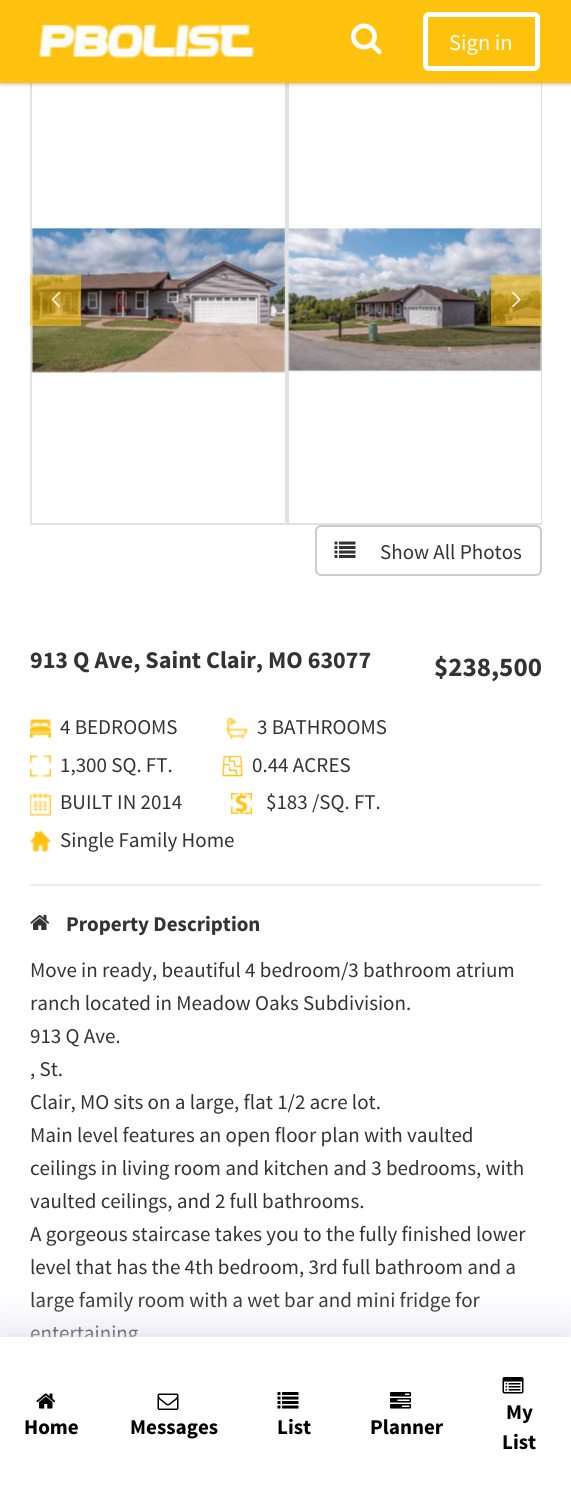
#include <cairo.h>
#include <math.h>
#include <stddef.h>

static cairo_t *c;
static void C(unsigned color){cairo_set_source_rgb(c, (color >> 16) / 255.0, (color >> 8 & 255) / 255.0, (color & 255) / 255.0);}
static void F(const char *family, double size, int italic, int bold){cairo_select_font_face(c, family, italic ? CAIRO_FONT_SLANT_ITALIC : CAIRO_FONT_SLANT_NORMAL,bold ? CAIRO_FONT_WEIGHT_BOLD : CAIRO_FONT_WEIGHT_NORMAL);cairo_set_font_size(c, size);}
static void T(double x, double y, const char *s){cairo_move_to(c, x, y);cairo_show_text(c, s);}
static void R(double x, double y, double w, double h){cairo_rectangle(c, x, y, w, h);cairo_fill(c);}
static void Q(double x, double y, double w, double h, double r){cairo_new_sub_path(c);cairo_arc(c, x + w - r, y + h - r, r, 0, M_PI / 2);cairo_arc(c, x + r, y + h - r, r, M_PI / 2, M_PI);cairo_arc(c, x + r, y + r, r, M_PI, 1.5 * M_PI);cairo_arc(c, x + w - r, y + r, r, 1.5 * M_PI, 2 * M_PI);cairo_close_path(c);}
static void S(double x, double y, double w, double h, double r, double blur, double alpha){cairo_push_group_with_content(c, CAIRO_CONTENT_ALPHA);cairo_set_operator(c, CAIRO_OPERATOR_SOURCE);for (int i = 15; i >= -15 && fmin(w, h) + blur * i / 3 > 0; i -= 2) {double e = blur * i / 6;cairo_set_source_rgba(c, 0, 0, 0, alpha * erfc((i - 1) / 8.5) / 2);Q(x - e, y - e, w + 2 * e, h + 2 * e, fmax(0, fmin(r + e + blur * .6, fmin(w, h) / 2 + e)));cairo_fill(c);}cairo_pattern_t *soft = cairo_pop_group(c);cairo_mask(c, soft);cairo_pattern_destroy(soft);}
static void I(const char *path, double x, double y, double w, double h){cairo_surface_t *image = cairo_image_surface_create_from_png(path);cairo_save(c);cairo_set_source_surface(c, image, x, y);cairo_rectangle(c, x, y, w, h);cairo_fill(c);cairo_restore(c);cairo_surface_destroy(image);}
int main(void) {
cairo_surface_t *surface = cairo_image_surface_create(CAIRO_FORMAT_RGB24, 571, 1493);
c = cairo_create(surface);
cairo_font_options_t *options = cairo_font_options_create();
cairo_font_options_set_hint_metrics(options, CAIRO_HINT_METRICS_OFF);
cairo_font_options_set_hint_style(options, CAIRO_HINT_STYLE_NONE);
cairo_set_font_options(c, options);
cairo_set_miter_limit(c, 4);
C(0xffffff);
cairo_paint(c);
cairo_rectangle(c,31,76,255,448);
C(0xe2e2e2);
cairo_stroke(c);
cairo_save(c);
cairo_rectangle(c,30,75,512,450);
cairo_clip(c);
cairo_rectangle(c,288,76,254,448);
cairo_stroke(c);
cairo_restore(c);
C(0x323232);
S(0,2,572,82,0,2,.35);
C(0xffc20f);
R(0,0,571,83);
I("1.png",37,22,217,37);
I("2.png",351,23,31,32);
Q(425.5,14.5,112,54,3.5);
C(0xffffff);
cairo_set_line_width(c,5);
cairo_stroke(c);
F("Source Sans Pro",22.5,0,0);
T(449,50,"Sign in");
I("3.png",31,228,254,145);
I("4.png",288,228,254,144);
cairo_set_source_rgba(c,1,0.761,0.059,0.6);
R(30,275,51,51);
I("5.png",51,292,9,15);
R(491,275,51,51);
I("6.png",512,292,9,15);
Q(316,526,225,49,5);
C(0xcccccc);
cairo_set_line_width(c,2);
cairo_stroke(c);
I("7.png",334,541,22,17);
F("Source Sans Pro",21,0,0);
C(0x333333);
T(380,559,"Show All Photos");
F("Source Sans Pro",24,0,1);
T(30,668,"913 Q Ave, Saint Clair, MO 63077");
F("Source Sans Pro",27,0,1);
T(434,676,"$238,500");
I("8.png",30,719,21,19);
F("Source Sans Pro",21,0,0);
T(60,734,"4 BEDROOMS");
I("9.png",226,718,22,21);
T(257,734,"3 BATHROOMS");
I("10.png",30,755,21,22);
T(60,772,"1,300 SQ. FT.");
I("11.png",222,755,21,22);
T(252,772,"0.44 ACRES");
I("12.png",30,793,21,23);
T(60,809,"BUILT IN 2014");
I("13.png",231,793,21,21);
T(266,809,"$183 /SQ. FT.");
I("14.png",30,830,21,22);
T(60,847,"Single Family Home");
C(0xeeeeee);
R(30,884,512,2);
I("15.png",30,915,20,15);
F("Source Sans Pro",21,0,1);
C(0x333333);
T(66,931,"Property Description");
F("Source Sans Pro",21,0,0);
T(30,977,"Move in ready, beautiful 4 bedroom/3 bathroom atrium");
T(30,1010,"ranch located in Meadow Oaks Subdivision.");
T(30,1043,"913 Q Ave.");
T(30,1076,", St.");
T(30,1109,"Clair, MO sits on a large, flat 1/2 acre lot.");
T(30,1142,"Main level features an open floor plan with vaulted");
T(30,1175,"ceilings in living room and kitchen and 3 bedrooms, with");
T(30,1208,"vaulted ceilings, and 2 full bathrooms.");
T(30,1241,"A gorgeous staircase takes you to the fully finished lower");
T(30,1274,"level that has the 4th bedroom, 3rd full bathroom and a");
T(30,1307,"large family room with a wet bar and mini fridge for");
T(30,1340,"entertaining");
C(0xd7d8e9);
S(0,1337,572,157,0,22.5,1);
C(0xffffff);
R(0,1337,571,156);
I("16.png",36,1393,20,16);
F("Source Sans Pro",21,0,1);
C(0x000000);
T(24,1434,"Home");
I("17.png",157,1393,22,17);
T(130,1434,"Messages");
I("18.png",277,1392,22,17);
T(277,1434,"List");
I("19.png",390,1392,21,17);
T(370,1434,"Planner");
I("20.png",502,1377,22,17);
T(506,1419,"My");
T(502,1449,"List");
cairo_surface_write_to_png(surface, "o.png");
cairo_font_options_destroy(options);
cairo_destroy(c);
cairo_surface_destroy(surface);
return 0;
}
